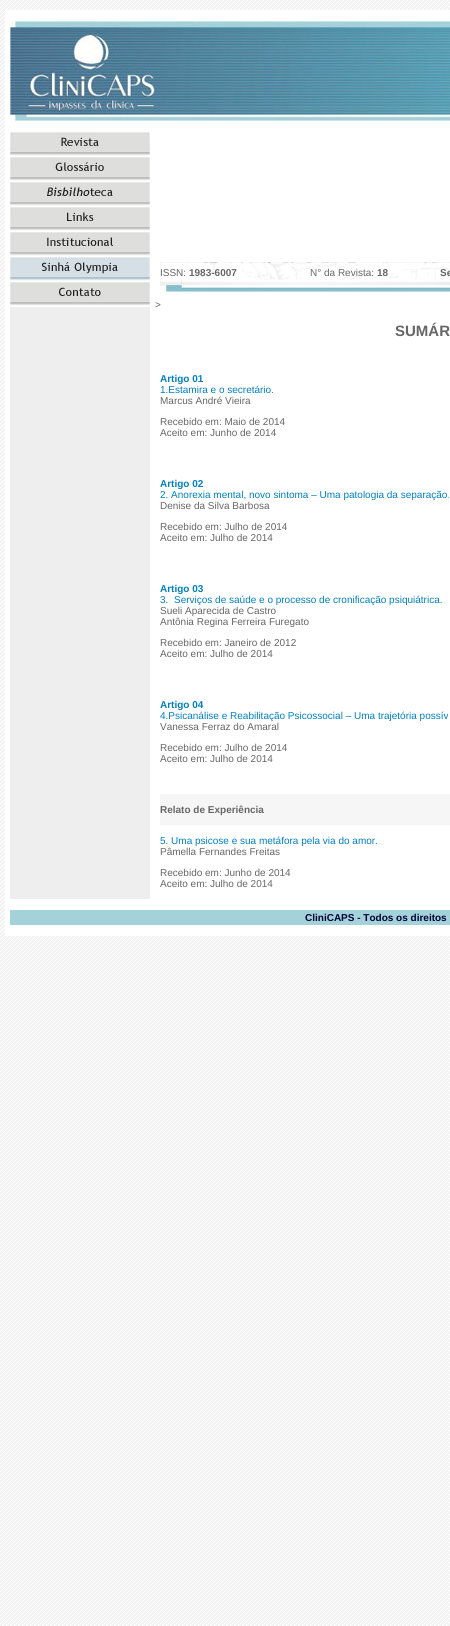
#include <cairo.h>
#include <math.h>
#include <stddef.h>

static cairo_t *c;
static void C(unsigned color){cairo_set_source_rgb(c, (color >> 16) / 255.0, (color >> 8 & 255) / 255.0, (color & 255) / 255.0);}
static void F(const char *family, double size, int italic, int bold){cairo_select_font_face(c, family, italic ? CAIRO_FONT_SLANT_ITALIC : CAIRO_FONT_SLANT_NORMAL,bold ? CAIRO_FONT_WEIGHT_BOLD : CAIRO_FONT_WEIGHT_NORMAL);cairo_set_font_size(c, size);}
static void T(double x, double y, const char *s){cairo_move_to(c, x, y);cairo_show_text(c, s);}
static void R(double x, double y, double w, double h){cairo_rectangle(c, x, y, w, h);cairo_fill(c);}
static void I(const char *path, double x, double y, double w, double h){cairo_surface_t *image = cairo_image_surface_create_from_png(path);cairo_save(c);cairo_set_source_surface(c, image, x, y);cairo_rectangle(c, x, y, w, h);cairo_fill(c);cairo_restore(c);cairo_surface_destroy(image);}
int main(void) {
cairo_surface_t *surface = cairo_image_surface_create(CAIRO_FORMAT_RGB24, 450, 1626);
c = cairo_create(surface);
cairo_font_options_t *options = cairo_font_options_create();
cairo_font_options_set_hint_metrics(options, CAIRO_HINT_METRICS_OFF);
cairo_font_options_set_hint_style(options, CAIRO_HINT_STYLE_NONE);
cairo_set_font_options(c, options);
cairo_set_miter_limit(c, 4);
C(0xffffff);
cairo_paint(c);
I("1.png",0,0,450,1626);
C(0xffffff);
R(5,10,445,926);
I("2.png",10,21,440,100);
C(0xefeeee);
R(10,307,140,592);
I("3.png",10,132,140,25);
I("4.png",10,157,140,25);
I("5.png",10,182,140,25);
I("6.png",10,207,140,25);
I("7.png",10,232,140,25);
I("8.png",10,257,140,25);
I("9.png",10,282,140,25);
I("10.png",160,262,290,21);
F("Liberation Sans",10,0,0);
C(0x666666);
T(160,276,"ISSN:");
F("Liberation Sans",10,0,1);
T(189,276,"1983-6007");
F("Liberation Sans",10,0,0);
T(310,276,"N° da Revista:");
F("Liberation Sans",10,0,1);
T(377,276,"18");
T(440,276,"Se");
I("11.png",160,283,290,9);
F("Liberation Sans",10,0,0);
T(155,308,">");
F("Liberation Sans",15,0,1);
T(395,336,"SUMÁR");
F("Liberation Sans",10,0,1);
C(0x0080c0);
T(160,382,"Artigo 01");
F("Liberation Sans",10,0,0);
T(160,393,"1.Estamira e o secretário.");
C(0x666666);
T(160,404,"Marcus André Vieira");
T(160,425,"Recebido em: Maio de 2014");
T(160,436,"Aceito em: Junho de 2014");
F("Liberation Sans",10,0,1);
C(0x0080c0);
T(160,487,"Artigo 02");
F("Liberation Sans",10,0,0);
T(160,498,"2. Anorexia mental, novo sintoma – Uma patologia da separação.");
C(0x666666);
T(160,509,"Denise da Silva Barbosa");
T(160,530,"Recebido em: Julho de 2014");
T(160,541,"Aceito em: Julho de 2014");
F("Liberation Sans",10,0,1);
C(0x0080c0);
T(160,592,"Artigo 03");
F("Liberation Sans",10,0,0);
T(160,603,"3.");
T(174,603,"Serviços de saúde e o processo de cronificação psiquiátrica.");
C(0x666666);
T(160,614,"Sueli Aparecida de Castro");
T(160,625,"Antônia Regina Ferreira Furegato");
T(160,646,"Recebido em: Janeiro de 2012");
T(160,657,"Aceito em: Julho de 2014");
F("Liberation Sans",10,0,1);
C(0x0080c0);
T(160,708,"Artigo 04");
F("Liberation Sans",10,0,0);
T(160,719,"4.Psicanálise e Reabilitação Psicossocial – Uma trajetória possív");
C(0x666666);
T(160,730,"Vanessa Ferraz do Amaral");
T(160,751,"Recebido em: Julho de 2014");
T(160,762,"Aceito em: Julho de 2014");
C(0xf6f6f6);
R(160,794,290,31);
F("Liberation Sans",10,0,1);
C(0x666666);
T(160,813,"Relato de Experiência");
F("Liberation Sans",10,0,0);
C(0x0080c0);
T(160,844,"5. Uma psicose e sua metáfora pela via do amor.");
C(0x666666);
T(160,855,"Pâmella Fernandes Freitas");
T(160,876,"Recebido em: Junho de 2014");
T(160,887,"Aceito em: Julho de 2014");
C(0xa3d2da);
R(10,910,440,15);
F("Liberation Sans",10,0,1);
C(0x000033);
T(305,921,"CliniCAPS - Todos os direitos");
cairo_surface_write_to_png(surface, "o.png");
cairo_font_options_destroy(options);
cairo_destroy(c);
cairo_surface_destroy(surface);
return 0;
}
